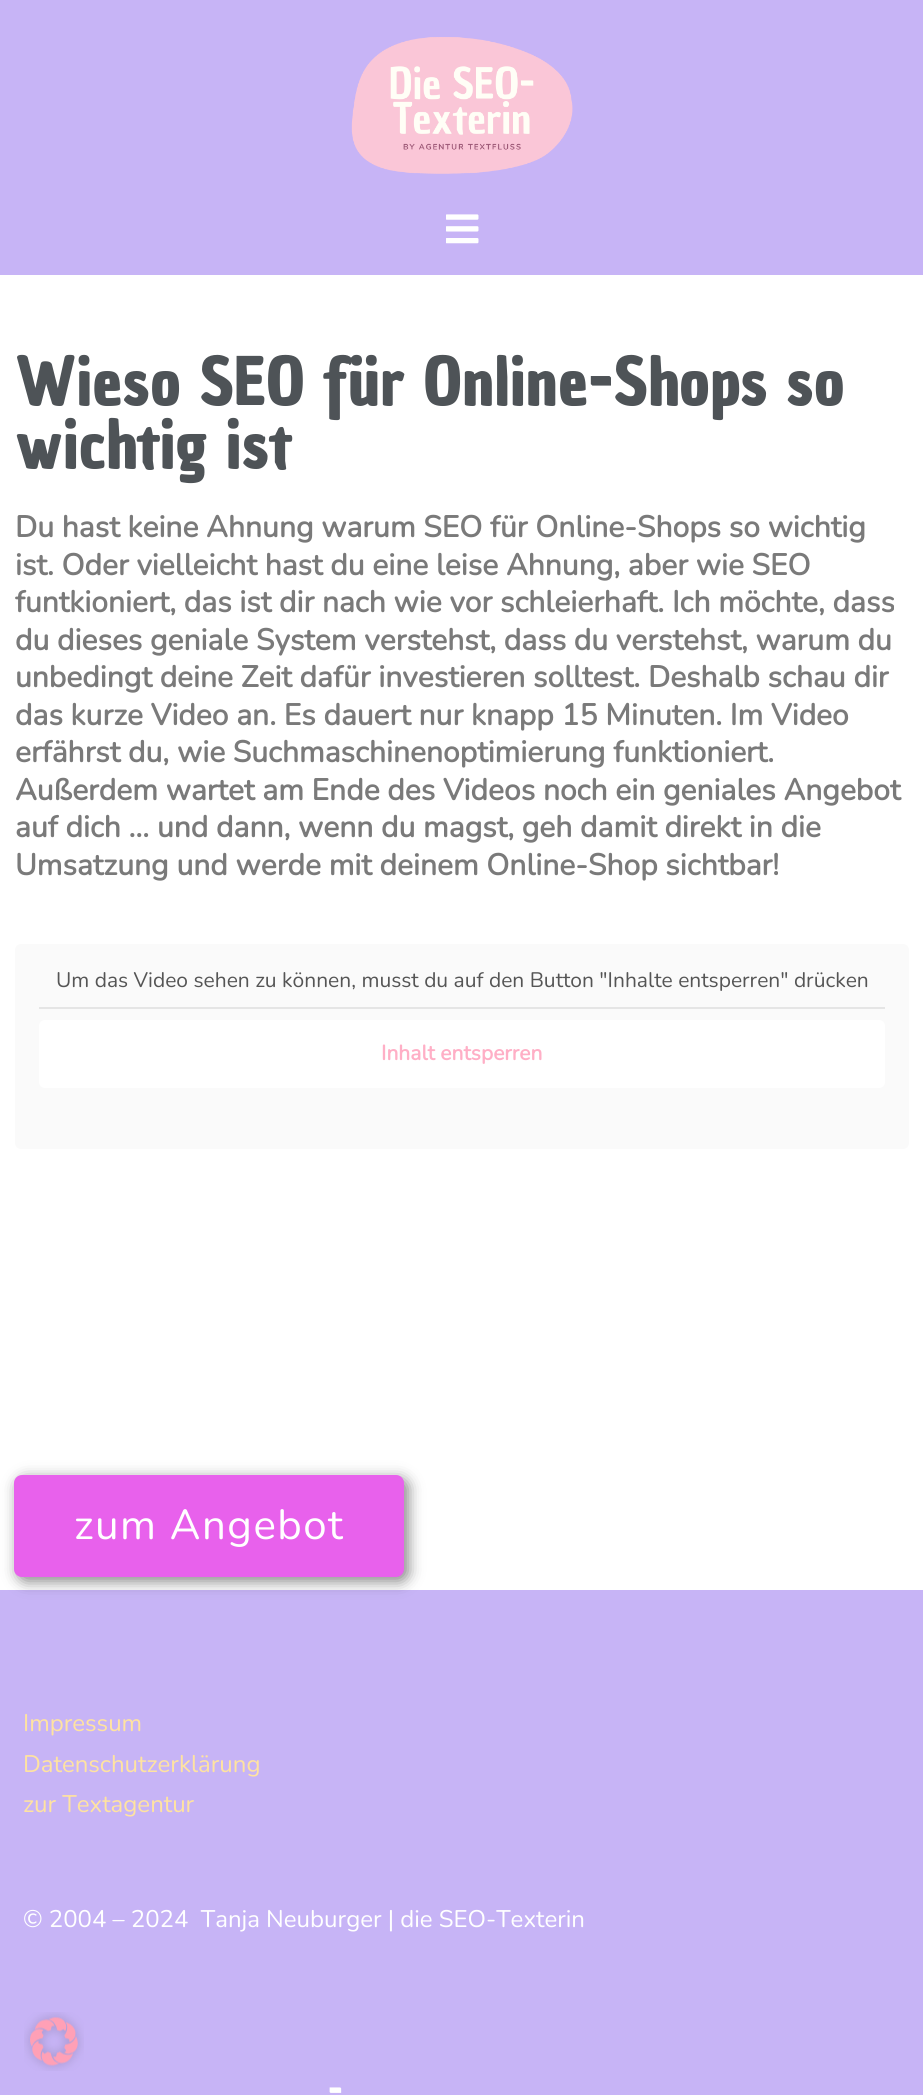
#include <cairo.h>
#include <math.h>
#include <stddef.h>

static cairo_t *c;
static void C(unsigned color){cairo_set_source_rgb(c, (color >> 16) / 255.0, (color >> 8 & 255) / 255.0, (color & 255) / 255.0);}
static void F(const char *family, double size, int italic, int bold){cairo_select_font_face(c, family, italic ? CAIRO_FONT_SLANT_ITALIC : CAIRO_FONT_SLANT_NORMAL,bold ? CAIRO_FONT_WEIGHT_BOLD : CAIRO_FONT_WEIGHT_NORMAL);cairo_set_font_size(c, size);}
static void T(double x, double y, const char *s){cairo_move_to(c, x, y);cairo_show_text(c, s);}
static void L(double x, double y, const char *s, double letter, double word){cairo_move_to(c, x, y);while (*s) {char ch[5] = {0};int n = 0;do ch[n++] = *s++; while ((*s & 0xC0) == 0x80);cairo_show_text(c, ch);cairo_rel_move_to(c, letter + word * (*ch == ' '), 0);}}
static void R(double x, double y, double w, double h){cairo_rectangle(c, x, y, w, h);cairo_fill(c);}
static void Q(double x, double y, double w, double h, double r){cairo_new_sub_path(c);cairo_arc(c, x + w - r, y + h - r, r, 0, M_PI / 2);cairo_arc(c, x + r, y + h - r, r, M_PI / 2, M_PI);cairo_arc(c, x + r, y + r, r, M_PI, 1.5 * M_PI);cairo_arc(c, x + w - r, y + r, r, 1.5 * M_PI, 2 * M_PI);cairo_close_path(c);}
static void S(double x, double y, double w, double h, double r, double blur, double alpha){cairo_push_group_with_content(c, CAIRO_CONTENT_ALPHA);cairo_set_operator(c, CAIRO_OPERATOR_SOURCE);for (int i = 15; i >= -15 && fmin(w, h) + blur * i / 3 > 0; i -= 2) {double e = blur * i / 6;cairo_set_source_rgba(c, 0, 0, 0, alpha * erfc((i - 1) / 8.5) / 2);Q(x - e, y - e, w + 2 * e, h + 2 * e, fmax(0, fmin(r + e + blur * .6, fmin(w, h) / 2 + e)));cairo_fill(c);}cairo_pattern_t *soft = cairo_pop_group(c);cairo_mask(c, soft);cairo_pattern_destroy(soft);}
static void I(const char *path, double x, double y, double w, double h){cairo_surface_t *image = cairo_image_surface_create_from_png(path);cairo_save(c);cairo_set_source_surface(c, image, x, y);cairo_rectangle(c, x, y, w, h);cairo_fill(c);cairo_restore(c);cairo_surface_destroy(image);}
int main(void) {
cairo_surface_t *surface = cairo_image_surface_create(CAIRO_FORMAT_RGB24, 923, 2095);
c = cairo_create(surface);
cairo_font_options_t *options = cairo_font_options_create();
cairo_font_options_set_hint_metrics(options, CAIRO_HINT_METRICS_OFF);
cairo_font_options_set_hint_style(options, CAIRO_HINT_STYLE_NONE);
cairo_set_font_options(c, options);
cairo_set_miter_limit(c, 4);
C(0xffffff);
cairo_paint(c);
C(0xc7b4f6);
R(0,0,923,275);
I("1.png",351,37,222,137);
I("2.png",446,214,33,30);
F("Chau Philomene One",63,0,1);
C(0x4e5357);
L(15,405,"Wieso SEO für Online-Shops so",1.5,0);
L(15,468,"wichtig ist",1.5,0);
F("Nunito",30,0,1);
C(0x7a7a7a);
T(15,537,"Du hast keine Ahnung warum SEO für Online-Shops so wichtig");
T(15,575,"ist. Oder vielleicht hast du eine leise Ahnung, aber wie SEO");
T(15,612,"funtkioniert, das ist dir nach wie vor schleierhaft. Ich möchte, dass");
T(15,650,"du dieses geniale System verstehst, dass du verstehst, warum du");
T(15,687,"unbedingt deine Zeit dafür investieren solltest. Deshalb schau dir");
T(15,725,"das kurze Video an. Es dauert nur knapp 15 Minuten. Im Video");
T(15,762,"erfährst du, wie Suchmaschinenoptimierung funktioniert.");
T(15,800,"Außerdem wartet am Ende des Videos noch ein geniales Angebot");
T(15,837,"auf dich … und dann, wenn du magst, geh damit direkt in die");
T(15,875,"Umsatzung und werde mit deinem Online-Shop sichtbar!");
C(0xfafafa);
Q(15,944,894,205,6);
cairo_fill(c);
C(0xe5e5e5);
R(39,1007,846,2);
F("Nunito",21,0,0);
C(0x555555);
T(56,987,"Um das Video sehen zu können, musst du auf den Button \"Inhalte entsperren\" drücken");
C(0xffffff);
Q(39,1020,846,68,6);
cairo_fill(c);
F("Nunito",21,0,1);
C(0xffafc6);
T(381,1060,"Inhalt entsperren");
C(0xc7b4f6);
R(0,1590,923,505);
C(0x000000);
S(18,1479,390,102,8,7.5,.5);
C(0xe861ec);
Q(14,1475,390,102,8);
cairo_fill(c);
F("Nunito",42,0,0);
C(0xffffff);
L(74,1539,"zum Angebot",1.5,0);
F("Nunito",24,0,0);
C(0xffe3a0);
T(23,1731,"Impressum");
T(23,1772,"Datenschutzerklärung");
T(23,1812,"zur Textagentur");
C(0xffffff);
T(23,1927,"© 2004 – 2024  Tanja Neuburger | die SEO-Texterin");
F("Chau Philomene One",36,0,1);
L(328,2104,"-",1.5,0);
I("3.png",24,2012,60,59);
cairo_surface_write_to_png(surface, "o.png");
cairo_font_options_destroy(options);
cairo_destroy(c);
cairo_surface_destroy(surface);
return 0;
}
